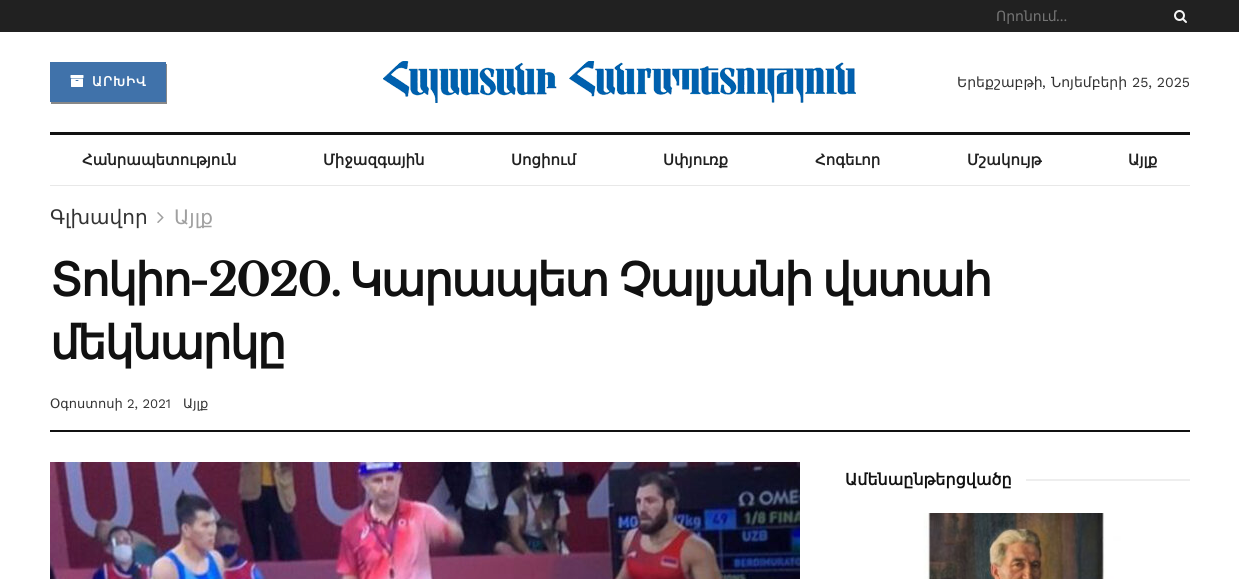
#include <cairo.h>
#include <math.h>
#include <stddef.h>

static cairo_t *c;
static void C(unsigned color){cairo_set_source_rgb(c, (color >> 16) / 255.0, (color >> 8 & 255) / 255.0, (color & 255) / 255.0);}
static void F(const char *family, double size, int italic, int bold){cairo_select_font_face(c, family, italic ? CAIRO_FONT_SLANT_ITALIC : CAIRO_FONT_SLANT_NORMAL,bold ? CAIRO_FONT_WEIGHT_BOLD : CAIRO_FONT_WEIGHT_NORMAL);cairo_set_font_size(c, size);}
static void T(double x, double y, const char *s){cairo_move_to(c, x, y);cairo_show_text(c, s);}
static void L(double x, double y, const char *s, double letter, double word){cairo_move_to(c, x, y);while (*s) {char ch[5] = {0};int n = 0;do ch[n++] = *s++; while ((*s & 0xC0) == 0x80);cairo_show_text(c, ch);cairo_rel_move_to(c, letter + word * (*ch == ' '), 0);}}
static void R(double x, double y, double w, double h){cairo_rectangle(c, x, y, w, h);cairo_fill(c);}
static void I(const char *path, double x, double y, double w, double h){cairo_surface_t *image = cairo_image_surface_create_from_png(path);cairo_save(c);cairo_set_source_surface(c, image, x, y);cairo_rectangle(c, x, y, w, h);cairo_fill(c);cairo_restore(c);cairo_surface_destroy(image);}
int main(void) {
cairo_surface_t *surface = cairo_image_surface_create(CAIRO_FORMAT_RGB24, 1239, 579);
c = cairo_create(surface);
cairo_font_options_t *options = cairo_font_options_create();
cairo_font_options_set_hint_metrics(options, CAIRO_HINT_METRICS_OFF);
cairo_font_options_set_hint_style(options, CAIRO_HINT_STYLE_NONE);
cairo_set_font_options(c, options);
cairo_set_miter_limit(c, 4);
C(0xffffff);
cairo_paint(c);
C(0x212121);
R(0,0,1239,32);
F("DejaVu Sans",14,0,0);
C(0x757575);
T(996,21,"Որոնում");
F("Work Sans",14,0,0);
T(1056,21,"...");
I("1.png",1174,10,13,13);
C(0x888888);
cairo_new_path(c);
cairo_move_to(c,51,102);
cairo_line_to(c,51,104);
cairo_line_to(c,167,104);
cairo_line_to(c,167,64);
cairo_line_to(c,166,64);
cairo_line_to(c,166,102);
cairo_close_path(c);
cairo_fill(c);
C(0x4072aa);
R(50,62,116,40);
I("2.png",70,75,14,12);
F("DejaVu Sans",13,0,1);
C(0xffffff);
L(92,86,"ԱՐԽԻՎ",1,0);
I("3.png",383,61,473,42);
F("DejaVu Sans",14,0,0);
C(0x333333);
T(957,87,"Երեքշաբթի");
F("Work Sans",14,0,0);
T(1042,87,",");
F("DejaVu Sans",14,0,0);
T(1051,87,"Նոյեմբերի");
F("Work Sans",14,0,0);
T(1132,87,"25, 2025");
C(0x111111);
R(50,132,1140,3);
C(0xe8e8e8);
R(50,185,1140,1);
F("DejaVu Sans",15,0,1);
C(0x212121);
T(82,165,"Հանրապետություն");
T(323,165,"Միջազգային");
T(511,165,"Սոցիում");
T(663,165,"Սփյուռք");
T(815,165,"Հոգեւոր");
T(967,165,"Մշակույթ");
T(1128,165,"Այլք");
F("DejaVu Sans",20,0,0);
C(0x333333);
T(50,224,"Գլխավոր");
I("4.png",157,212,7,11);
C(0xa0a0a0);
T(174,224,"Այլք");
C(0x111111);
R(50,430,1140,2);
F("DejaVu Sans",46,0,1);
L(50,296,"Տոկիո",-1.8,0);
F("Libre Baskerville",46,0,1);
L(189,296,"-2020.",-1.8,0);
F("DejaVu Sans",46,0,1);
L(349,296,"Կարապետ Չալյանի վստահ",-1.8,-2);
L(50,359,"մեկնարկը",-1.8,0);
F("DejaVu Sans",13,0,0);
C(0x333333);
T(50,408,"Օգոստոսի");
F("Work Sans",13,0,0);
T(127,408,"2, 2021");
F("DejaVu Sans",13,0,0);
T(183,408,"Այլք");
I("5.png",50,462,750,117);
F("DejaVu Sans",16,0,1);
C(0x111111);
T(845,485,"Ամենաընթերցվածը");
C(0xeeeeee);
R(1026,479,164,2);
I("6.png",845,513,345,66);
cairo_surface_write_to_png(surface, "o.png");
cairo_font_options_destroy(options);
cairo_destroy(c);
cairo_surface_destroy(surface);
return 0;
}
